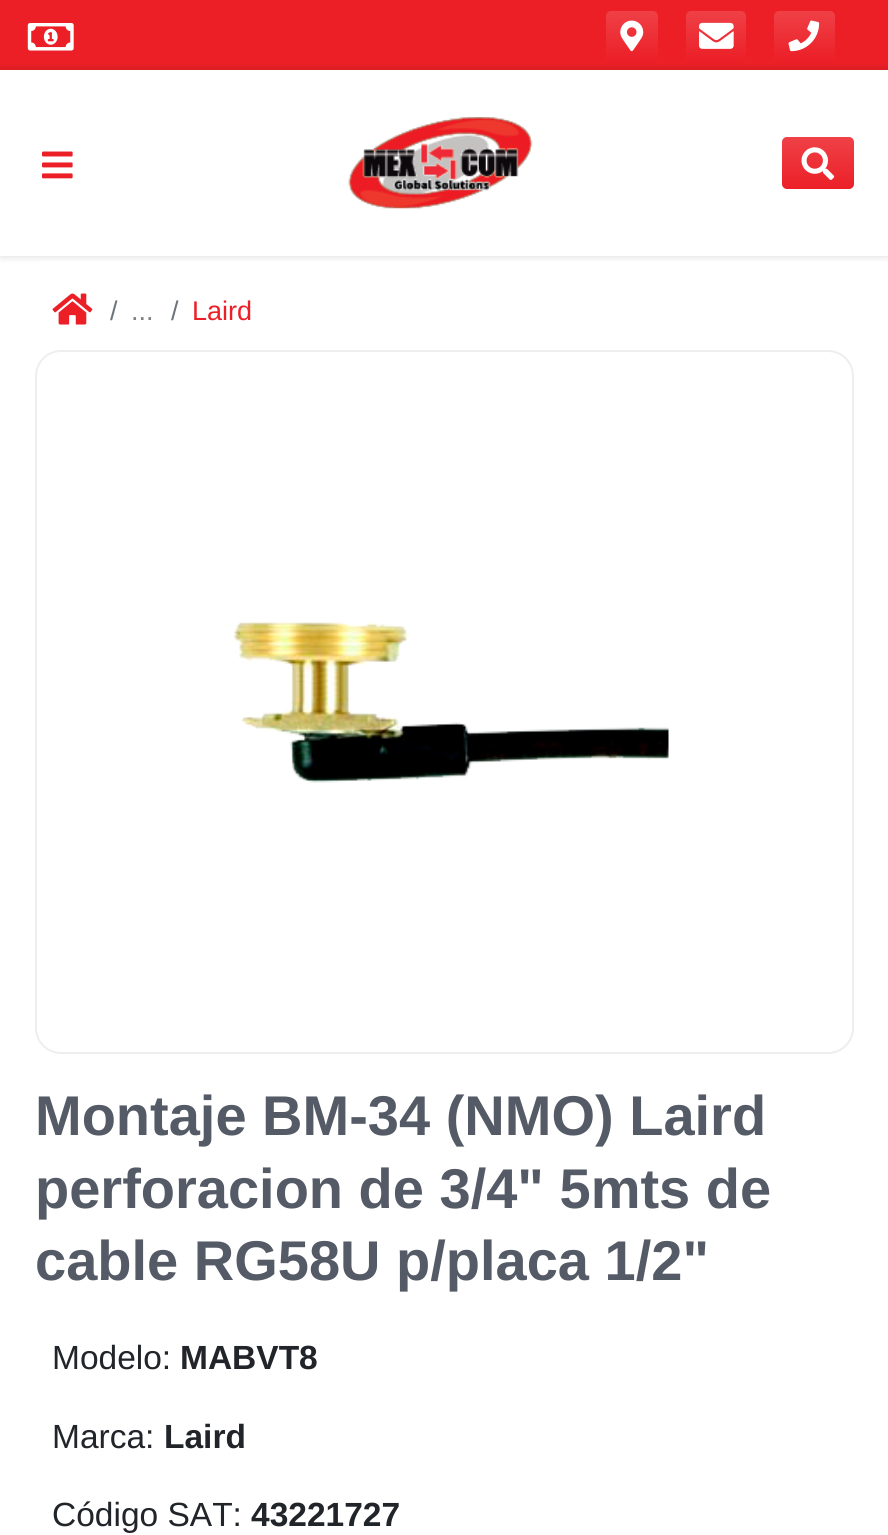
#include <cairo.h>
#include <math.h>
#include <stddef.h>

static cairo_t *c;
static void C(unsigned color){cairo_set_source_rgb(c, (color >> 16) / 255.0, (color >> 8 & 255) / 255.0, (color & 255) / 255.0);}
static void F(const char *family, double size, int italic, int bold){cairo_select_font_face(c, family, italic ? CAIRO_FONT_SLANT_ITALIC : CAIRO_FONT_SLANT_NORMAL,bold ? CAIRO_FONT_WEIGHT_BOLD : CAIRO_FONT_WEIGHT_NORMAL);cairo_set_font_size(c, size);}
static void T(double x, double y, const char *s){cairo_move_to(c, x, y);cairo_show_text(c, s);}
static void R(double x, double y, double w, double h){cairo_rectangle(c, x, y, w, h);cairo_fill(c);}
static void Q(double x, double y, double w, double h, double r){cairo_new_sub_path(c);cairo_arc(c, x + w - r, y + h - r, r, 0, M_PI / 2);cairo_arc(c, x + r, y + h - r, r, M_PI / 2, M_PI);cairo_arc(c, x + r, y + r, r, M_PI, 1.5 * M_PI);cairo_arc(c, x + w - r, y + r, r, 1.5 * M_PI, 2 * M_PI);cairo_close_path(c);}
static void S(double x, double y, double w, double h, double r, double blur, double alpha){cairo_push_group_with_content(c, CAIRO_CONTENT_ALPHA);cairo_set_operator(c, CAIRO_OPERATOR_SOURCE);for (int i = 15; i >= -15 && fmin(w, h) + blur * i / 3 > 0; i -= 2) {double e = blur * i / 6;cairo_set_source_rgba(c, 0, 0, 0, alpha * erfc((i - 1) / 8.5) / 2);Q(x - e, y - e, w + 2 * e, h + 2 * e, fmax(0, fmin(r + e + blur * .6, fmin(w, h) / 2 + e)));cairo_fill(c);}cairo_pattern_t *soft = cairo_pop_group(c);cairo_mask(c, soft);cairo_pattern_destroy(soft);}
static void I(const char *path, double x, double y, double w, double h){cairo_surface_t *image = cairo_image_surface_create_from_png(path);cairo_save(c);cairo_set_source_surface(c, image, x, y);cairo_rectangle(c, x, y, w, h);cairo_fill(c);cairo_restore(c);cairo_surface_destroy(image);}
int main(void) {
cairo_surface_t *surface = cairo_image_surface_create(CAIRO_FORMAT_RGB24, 888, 1535);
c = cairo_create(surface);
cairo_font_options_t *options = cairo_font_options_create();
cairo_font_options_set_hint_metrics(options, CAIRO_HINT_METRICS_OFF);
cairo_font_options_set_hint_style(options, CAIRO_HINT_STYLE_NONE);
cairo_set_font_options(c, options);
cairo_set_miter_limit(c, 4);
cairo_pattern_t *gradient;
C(0xffffff);
cairo_paint(c);
C(0xec1f27);
R(0,0,888,70);
I("1.png",27,23,47,28);
C(0x000000);
S(0,70,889,186,0,4.5,.15);
gradient = cairo_pattern_create_linear(632,10,632,61);
cairo_pattern_add_color_stop_rgba(gradient,0,0.937,0.255,0.278,1);
cairo_pattern_add_color_stop_rgba(gradient,1,0.925,0.122,0.153,1);
cairo_set_source(c,gradient);
cairo_pattern_destroy(gradient);
Q(606,11,52,50,5);
cairo_fill(c);
I("2.png",620,20,24,32);
gradient = cairo_pattern_create_linear(716,10,716,61);
cairo_pattern_add_color_stop_rgba(gradient,0,0.937,0.255,0.278,1);
cairo_pattern_add_color_stop_rgba(gradient,1,0.925,0.122,0.153,1);
cairo_set_source(c,gradient);
cairo_pattern_destroy(gradient);
Q(686,11,60,50,5);
cairo_fill(c);
I("3.png",699,22,35,27);
gradient = cairo_pattern_create_linear(804,10,804,61);
cairo_pattern_add_color_stop_rgba(gradient,0,0.937,0.255,0.278,1);
cairo_pattern_add_color_stop_rgba(gradient,1,0.925,0.122,0.153,1);
cairo_set_source(c,gradient);
cairo_pattern_destroy(gradient);
Q(774,11,61,50,5);
cairo_fill(c);
I("4.png",788,20,32,32);
C(0xffffff);
R(0,70,888,186);
I("5.png",42,151,31,28);
I("6.png",348,117,185,92);
gradient = cairo_pattern_create_linear(818,137,818,189);
cairo_pattern_add_color_stop_rgba(gradient,0,0.937,0.255,0.278,1);
cairo_pattern_add_color_stop_rgba(gradient,1,0.925,0.122,0.153,1);
cairo_set_source(c,gradient);
cairo_pattern_destroy(gradient);
Q(782,137,72,52,5);
cairo_fill(c);
I("7.png",801,147,34,33);
C(0xffffff);
Q(35,261,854,89,7);
cairo_fill(c);
I("8.png",52,293,41,32);
F("Arimo",27,0,0);
C(0x6c757d);
T(110,320,"/");
C(0x7f7f7f);
T(131,320,"...");
C(0x6c757d);
T(171,320,"/");
C(0xec1f27);
T(192,320,"Laird");
Q(36,351,817,702,25);
C(0xeeeeee);
cairo_stroke(c);
I("9.png",225,621,444,162);
F("Arimo",56,0,1);
C(0x555b66);
T(35,1135,"Montaje BM-34 (NMO) Laird");
T(35,1208,"perforacion de 3/4\" 5mts de");
T(35,1280,"cable RG58U p/placa 1/2\"");
F("Arimo",33.5,0,0);
C(0x212529);
T(52,1369,"Modelo:");
F("Arimo",33.5,0,1);
T(180,1369,"MABVT8");
F("Arimo",33.5,0,0);
T(52,1448,"Marca:");
F("Arimo",33.5,0,1);
T(164,1448,"Laird");
F("Arimo",33.5,0,0);
T(52,1526,"Código SAT:");
F("Arimo",33.5,0,1);
T(251,1526,"43221727");
cairo_surface_write_to_png(surface, "o.png");
cairo_font_options_destroy(options);
cairo_destroy(c);
cairo_surface_destroy(surface);
return 0;
}
